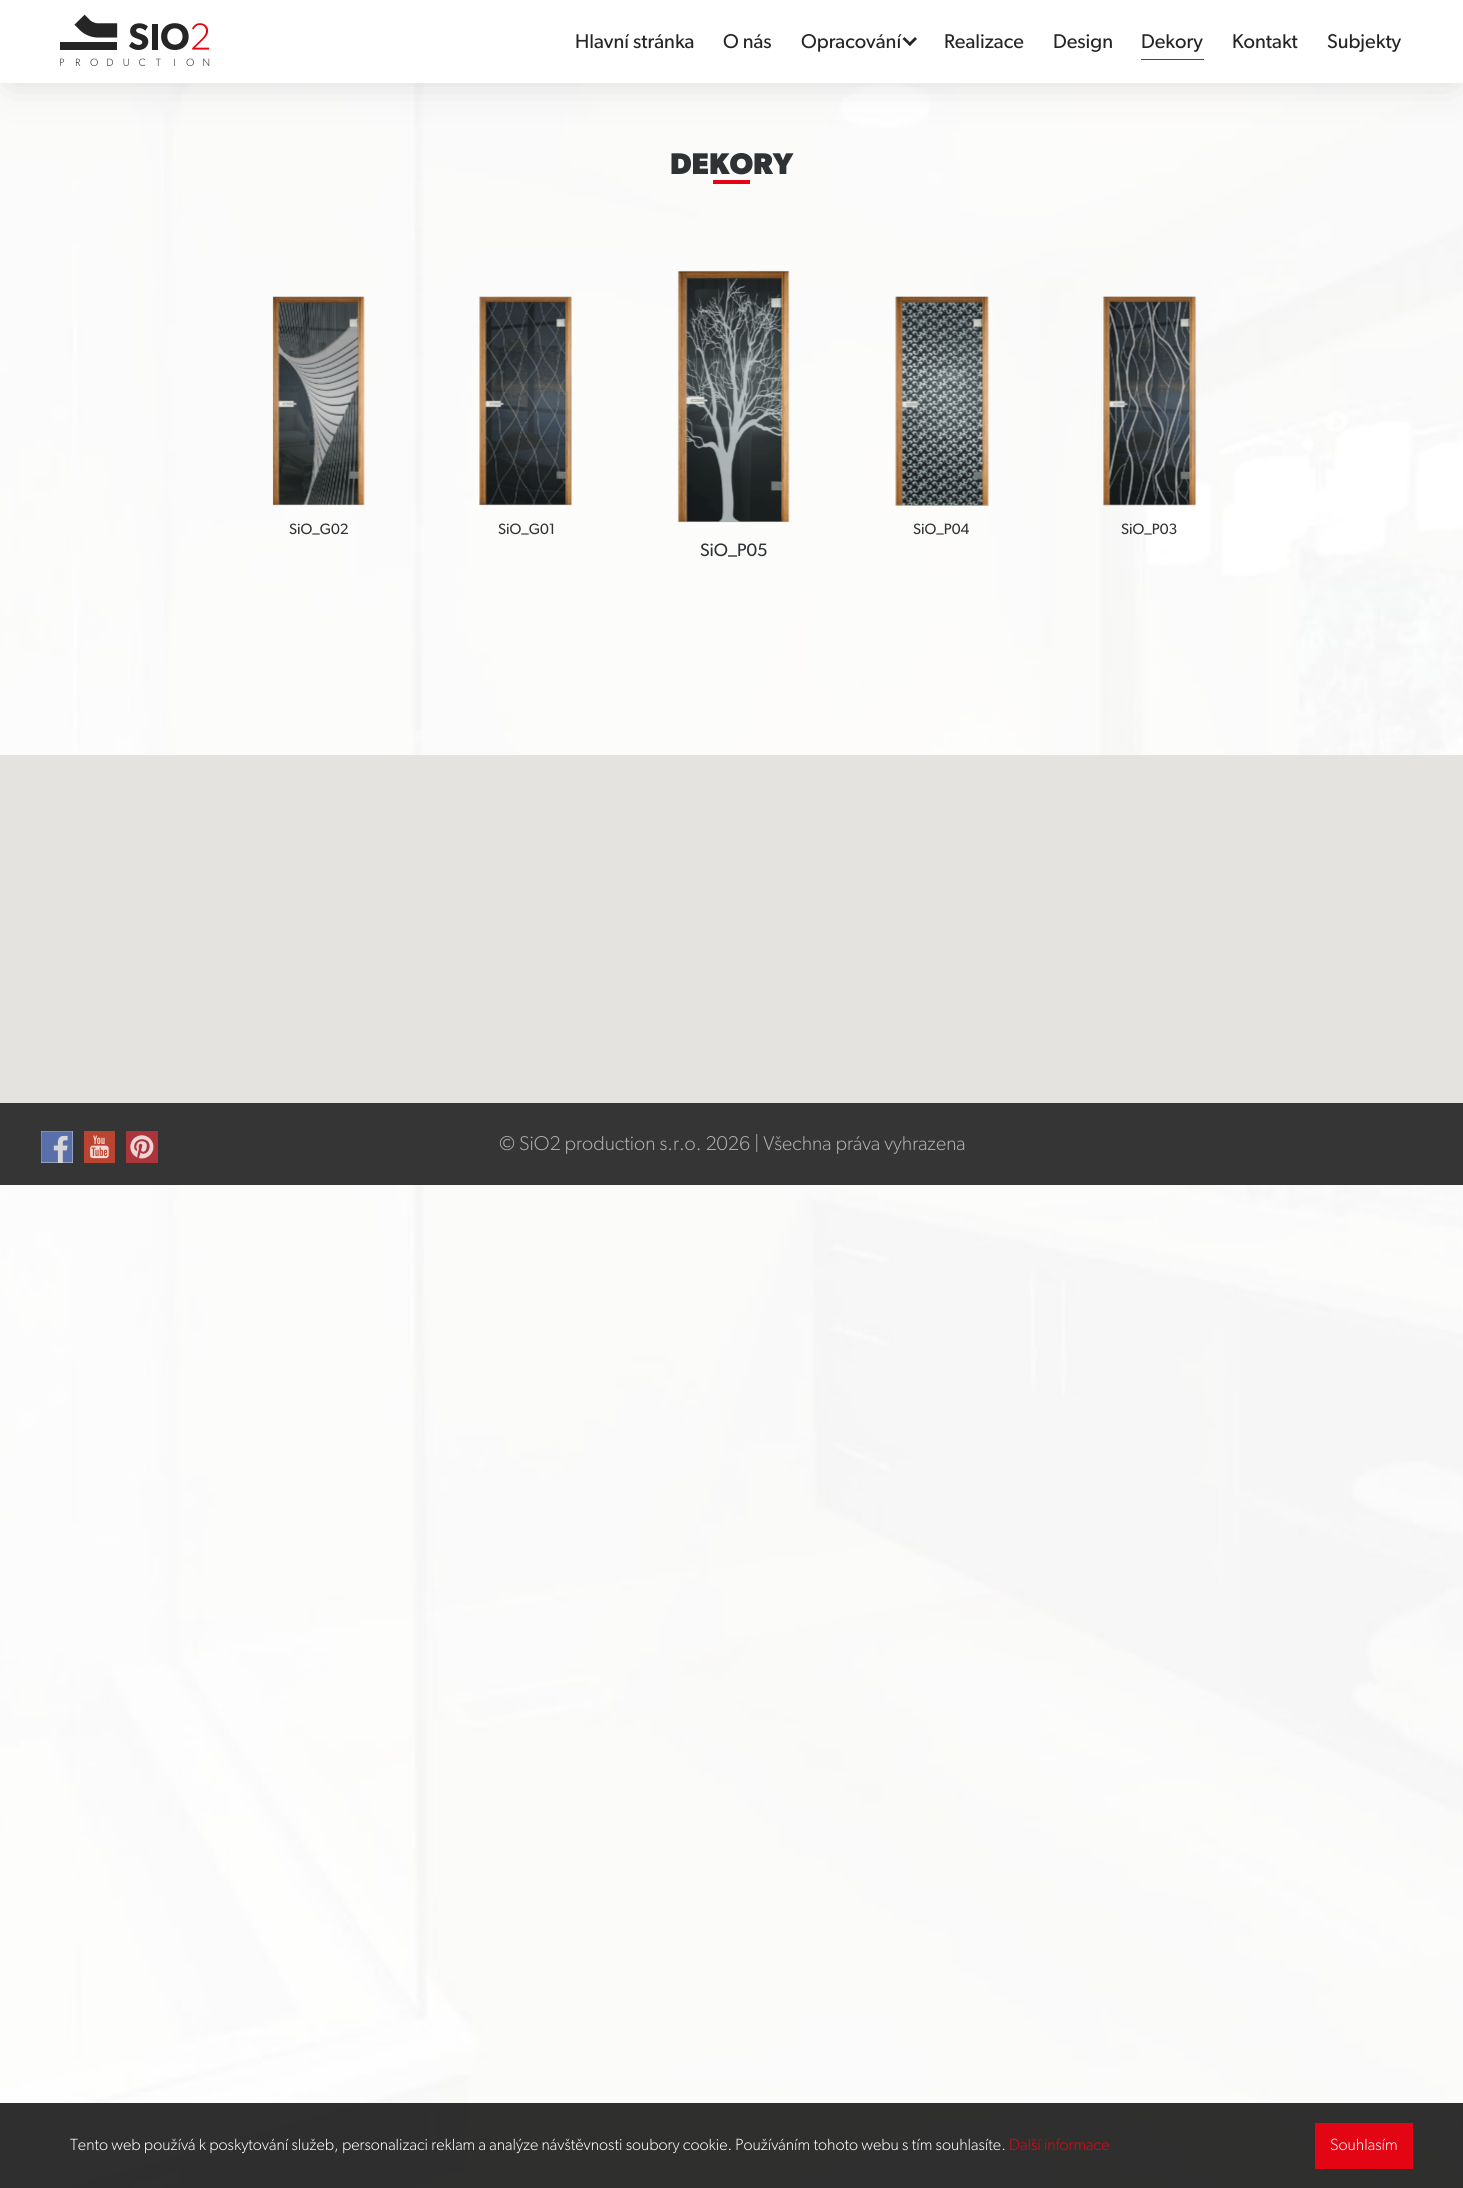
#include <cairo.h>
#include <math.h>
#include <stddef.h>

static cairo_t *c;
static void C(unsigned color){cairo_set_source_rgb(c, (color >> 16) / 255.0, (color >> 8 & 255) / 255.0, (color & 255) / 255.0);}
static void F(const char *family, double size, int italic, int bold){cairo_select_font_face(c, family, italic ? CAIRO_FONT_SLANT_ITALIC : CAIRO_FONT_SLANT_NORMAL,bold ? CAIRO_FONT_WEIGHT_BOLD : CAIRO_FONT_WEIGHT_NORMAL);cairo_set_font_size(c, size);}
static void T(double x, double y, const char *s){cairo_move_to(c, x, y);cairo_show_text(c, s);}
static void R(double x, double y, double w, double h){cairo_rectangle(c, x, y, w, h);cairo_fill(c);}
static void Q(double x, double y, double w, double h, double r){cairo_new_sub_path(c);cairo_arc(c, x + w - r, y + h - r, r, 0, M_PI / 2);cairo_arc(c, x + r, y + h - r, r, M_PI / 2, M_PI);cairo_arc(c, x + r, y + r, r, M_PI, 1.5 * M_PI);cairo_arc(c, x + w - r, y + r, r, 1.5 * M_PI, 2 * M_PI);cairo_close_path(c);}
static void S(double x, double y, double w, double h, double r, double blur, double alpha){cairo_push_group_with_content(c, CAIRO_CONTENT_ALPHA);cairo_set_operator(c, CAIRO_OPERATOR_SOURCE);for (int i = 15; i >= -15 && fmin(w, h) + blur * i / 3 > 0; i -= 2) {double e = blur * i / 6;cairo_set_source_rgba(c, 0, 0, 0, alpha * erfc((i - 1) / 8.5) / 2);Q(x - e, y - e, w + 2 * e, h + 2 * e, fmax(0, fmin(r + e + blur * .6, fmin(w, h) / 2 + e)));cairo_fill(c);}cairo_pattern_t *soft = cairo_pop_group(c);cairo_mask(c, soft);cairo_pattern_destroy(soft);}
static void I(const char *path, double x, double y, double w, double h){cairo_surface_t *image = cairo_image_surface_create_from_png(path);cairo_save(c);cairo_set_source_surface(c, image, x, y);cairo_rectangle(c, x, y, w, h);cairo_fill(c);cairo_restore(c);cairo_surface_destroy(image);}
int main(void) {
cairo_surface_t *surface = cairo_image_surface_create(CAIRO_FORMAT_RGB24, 1463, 2188);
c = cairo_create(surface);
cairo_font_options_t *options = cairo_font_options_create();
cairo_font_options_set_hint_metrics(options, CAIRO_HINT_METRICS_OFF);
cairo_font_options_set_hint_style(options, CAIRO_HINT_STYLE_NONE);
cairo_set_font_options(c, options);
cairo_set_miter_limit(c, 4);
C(0xffffff);
cairo_paint(c);
I("1.png",0,83,1463,2105);
C(0x000000);
S(11,16,1442,60,0,22,.17);
C(0xffffff);
R(0,0,1463,83);
I("2.png",60,14,150,53);
F("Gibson",20,0,0);
C(0x252525);
T(575,48,"Hlavní stránka");
T(723,48,"O nás");
T(801,48,"Opracování");
cairo_new_path(c);
cairo_move_to(c,915,37);
cairo_line_to(c,917,39);
cairo_line_to(c,910,46);
cairo_line_to(c,908,44);
cairo_close_path(c);
cairo_fill(c);
cairo_new_path(c);
cairo_move_to(c,904.5,37);
cairo_line_to(c,911.5,44);
cairo_line_to(c,910,46);
cairo_line_to(c,902.5,39);
cairo_close_path(c);
cairo_fill(c);
T(944,48,"Realizace");
T(1053,48,"Design");
T(1141,48,"Dekory");
C(0xe30513);
R(1141,59,63,1);
C(0x252525);
T(1232,48,"Kontakt");
T(1327,48,"Subjekty");
F("Gibson",30,0,1);
C(0x2f3234);
T(670,174,"DEKORY");
C(0xe30513);
R(713,180,37,4);
I("3.png",1326,411,21,21);
I("4.png",272,296,93,210);
F("Gibson",15,0,0);
C(0x2f3234);
T(289,534,"SiO_G02");
I("5.png",479,296,93,210);
T(498,534,"SiO_G01");
I("6.png",895,296,94,210);
T(913,534,"SiO_P04");
I("7.png",1103,296,94,210);
T(1121,534,"SiO_P03");
I("8.png",677,270,113,253);
F("Gibson",18,0,0);
T(700,556,"SiO_P05");
C(0xe5e3df);
R(0,755,1463,348);
C(0x353535);
R(0,1103,1463,82);
C(0xd7d7d7);
R(41,1131,32,32);
I("9.png",41,1131,32,32);
I("10.png",84,1131,31,32);
I("11.png",126,1131,32,32);
F("Gibson Light",20,0,0);
C(0xaeaeae);
T(499,1150,"© SiO2 production s.r.o. 2026 | Všechna práva vyhrazena");
cairo_set_source_rgba(c,0.098,0.098,0.098,0.9);
R(0,2103,1463,85);
F("Gibson Light",16.25,0,0);
C(0xffffff);
T(70,2150,"Tento web používá k poskytování služeb, personalizaci reklam a analýze návštěvnosti soubory cookie. Používáním tohoto webu s tím souhlasíte.");
C(0xe30513);
T(1009,2150,"Další informace");
R(1315,2123,98,46);
C(0xffffff);
T(1330,2150,"Souhlasím");
cairo_surface_write_to_png(surface, "o.png");
cairo_font_options_destroy(options);
cairo_destroy(c);
cairo_surface_destroy(surface);
return 0;
}
